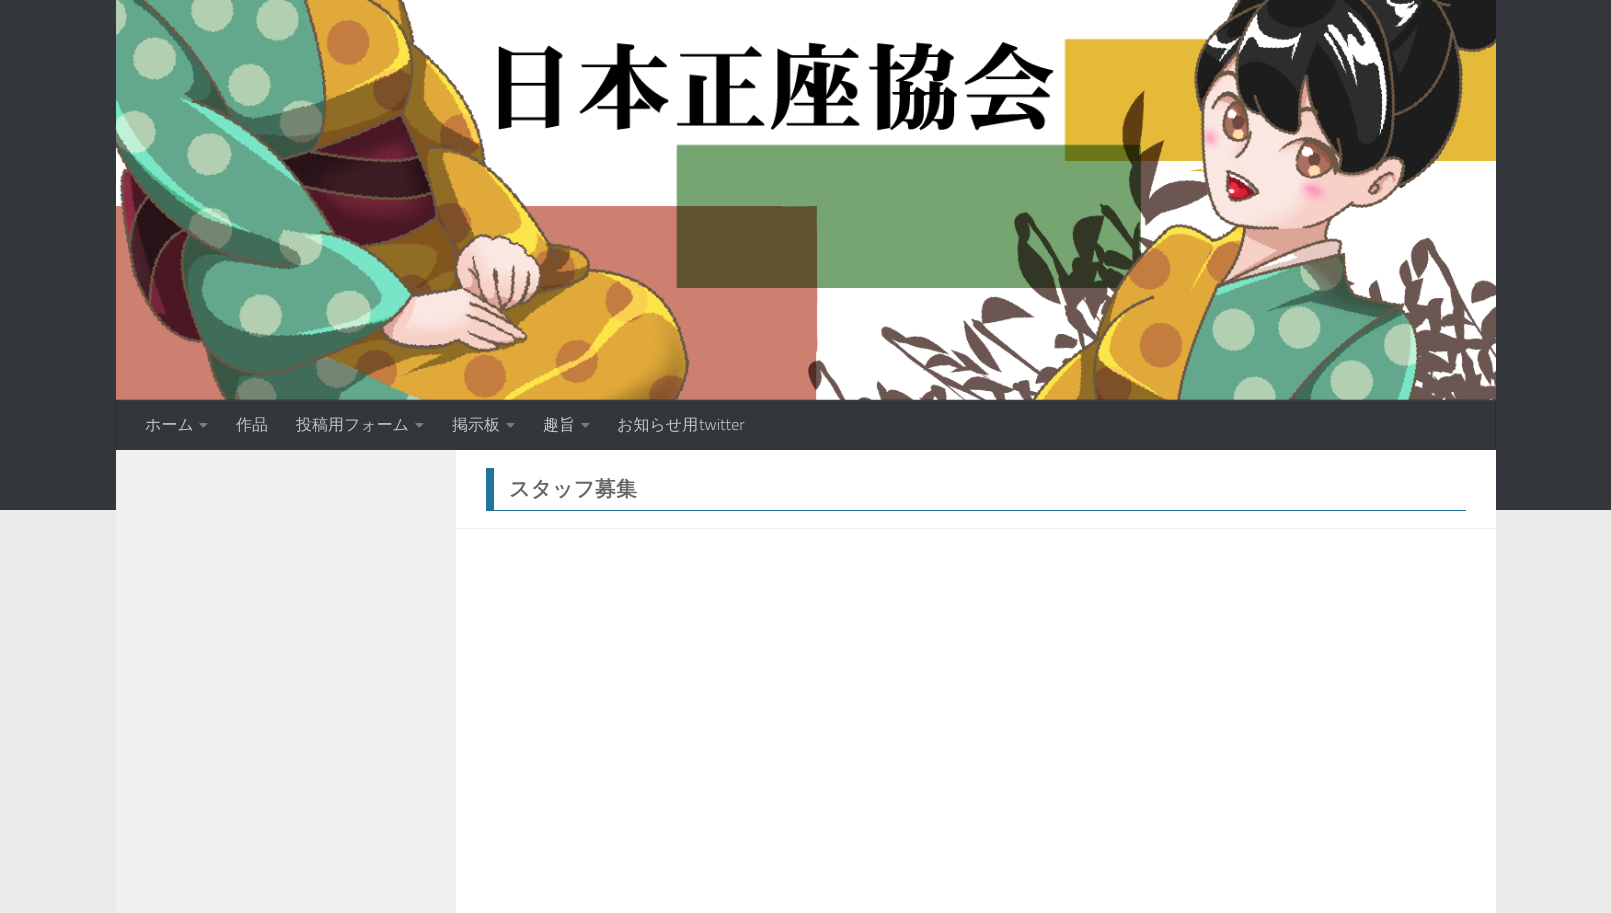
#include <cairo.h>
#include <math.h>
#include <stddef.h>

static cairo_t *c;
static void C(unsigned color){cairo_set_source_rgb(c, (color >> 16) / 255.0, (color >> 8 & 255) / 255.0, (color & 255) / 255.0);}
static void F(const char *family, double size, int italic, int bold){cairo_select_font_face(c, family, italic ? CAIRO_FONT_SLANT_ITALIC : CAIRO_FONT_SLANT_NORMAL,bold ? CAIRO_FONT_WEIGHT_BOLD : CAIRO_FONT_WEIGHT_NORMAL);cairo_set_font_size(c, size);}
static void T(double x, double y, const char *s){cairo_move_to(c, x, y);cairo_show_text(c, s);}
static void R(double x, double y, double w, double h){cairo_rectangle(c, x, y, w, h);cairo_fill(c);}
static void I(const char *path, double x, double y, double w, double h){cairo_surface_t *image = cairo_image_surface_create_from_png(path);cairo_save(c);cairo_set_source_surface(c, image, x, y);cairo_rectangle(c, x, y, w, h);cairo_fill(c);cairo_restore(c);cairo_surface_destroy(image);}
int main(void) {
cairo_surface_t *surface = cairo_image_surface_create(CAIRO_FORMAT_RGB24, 1611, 913);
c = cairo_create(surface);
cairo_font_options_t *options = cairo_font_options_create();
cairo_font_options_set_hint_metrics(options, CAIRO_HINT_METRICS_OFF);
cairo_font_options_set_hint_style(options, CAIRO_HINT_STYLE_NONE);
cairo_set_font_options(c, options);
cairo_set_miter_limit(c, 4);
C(0xeaeaea);
cairo_paint(c);
C(0x33363b);
R(0,0,1611,510);
I("1.png",116,0,1380,400);
cairo_set_source_rgba(c,0,0,0,0.2);
R(116,399,1380,1);
C(0x292b2f);
R(1495,400,1,50);
R(116,400,1,50);
cairo_set_source_rgba(c,1,1,1,0.05);
R(116,400,1380,1);
F("WenQuanYi Zen Hei Medium",16,0,0);
C(0xc2c3c4);
T(145,430,"ホーム");
I("2.png",199,423,9,5);
T(236,430,"作品");
T(296,430,"投稿用フォーム");
I("2.png",415,423,9,5);
T(452,430,"掲示板");
I("2.png",506,423,9,5);
T(543,430,"趣旨");
I("2.png",581,423,9,5);
T(617,430,"お知らせ用");
F("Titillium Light",16,0,0);
T(699,430,"twitter");
C(0xffffff);
R(456,450,1040,463);
C(0xf0f0f0);
R(116,450,340,463);
C(0xeeeeee);
R(456,528,1040,1);
C(0x21759b);
R(486,510,980,1);
R(486,468,8,43);
F("WenQuanYi Zen Hei",21,0,1);
C(0x666666);
T(509,496,"スタッフ募集");
cairo_surface_write_to_png(surface, "o.png");
cairo_font_options_destroy(options);
cairo_destroy(c);
cairo_surface_destroy(surface);
return 0;
}
